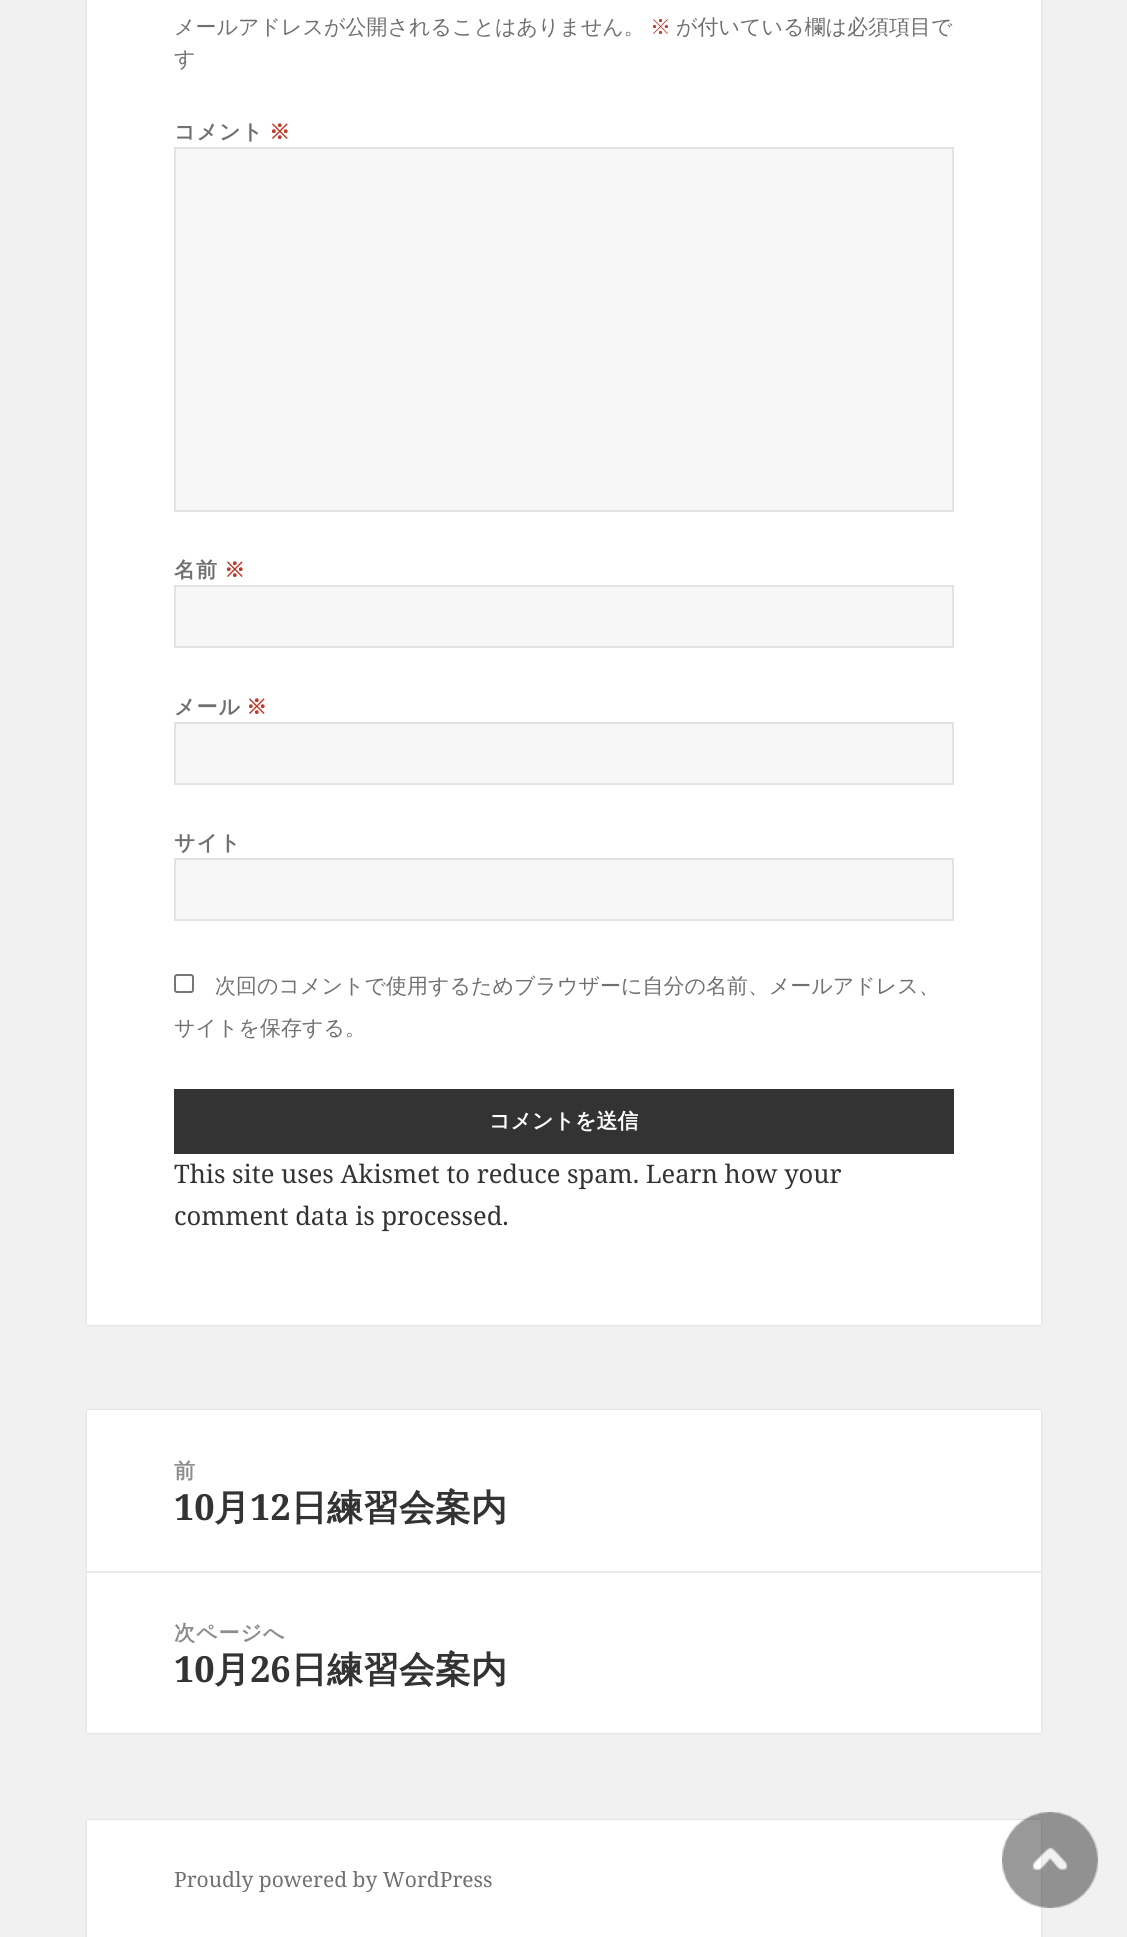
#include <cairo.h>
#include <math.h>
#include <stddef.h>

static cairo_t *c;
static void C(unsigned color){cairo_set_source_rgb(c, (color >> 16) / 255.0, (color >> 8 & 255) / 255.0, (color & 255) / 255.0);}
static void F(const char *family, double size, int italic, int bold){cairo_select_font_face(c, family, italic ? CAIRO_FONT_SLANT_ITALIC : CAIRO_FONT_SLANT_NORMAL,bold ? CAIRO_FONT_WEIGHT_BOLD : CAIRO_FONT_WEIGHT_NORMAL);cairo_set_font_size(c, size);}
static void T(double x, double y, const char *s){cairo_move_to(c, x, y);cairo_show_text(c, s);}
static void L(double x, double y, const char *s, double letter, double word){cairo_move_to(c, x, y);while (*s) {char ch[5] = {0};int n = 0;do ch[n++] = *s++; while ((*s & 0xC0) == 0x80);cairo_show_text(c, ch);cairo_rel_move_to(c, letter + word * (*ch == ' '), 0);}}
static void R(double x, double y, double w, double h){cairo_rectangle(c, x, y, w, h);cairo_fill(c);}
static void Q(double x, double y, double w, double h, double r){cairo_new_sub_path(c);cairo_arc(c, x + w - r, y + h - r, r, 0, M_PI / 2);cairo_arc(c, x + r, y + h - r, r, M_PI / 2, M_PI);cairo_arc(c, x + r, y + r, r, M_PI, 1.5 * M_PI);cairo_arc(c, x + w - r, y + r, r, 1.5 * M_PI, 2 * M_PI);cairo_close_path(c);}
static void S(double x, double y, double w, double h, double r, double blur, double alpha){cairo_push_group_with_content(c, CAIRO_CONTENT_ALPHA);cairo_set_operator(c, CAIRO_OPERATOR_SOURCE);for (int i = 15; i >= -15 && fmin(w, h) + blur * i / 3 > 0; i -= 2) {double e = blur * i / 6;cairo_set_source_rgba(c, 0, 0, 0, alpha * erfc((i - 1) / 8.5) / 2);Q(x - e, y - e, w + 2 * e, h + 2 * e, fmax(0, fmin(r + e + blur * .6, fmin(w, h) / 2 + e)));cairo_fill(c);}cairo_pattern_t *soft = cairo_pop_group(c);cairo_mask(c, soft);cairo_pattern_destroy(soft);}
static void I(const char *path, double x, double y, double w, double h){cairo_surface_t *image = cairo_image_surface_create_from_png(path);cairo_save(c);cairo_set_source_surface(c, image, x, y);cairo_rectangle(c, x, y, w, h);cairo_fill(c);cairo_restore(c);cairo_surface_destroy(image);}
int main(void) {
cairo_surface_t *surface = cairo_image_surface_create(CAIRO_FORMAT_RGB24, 1127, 1937);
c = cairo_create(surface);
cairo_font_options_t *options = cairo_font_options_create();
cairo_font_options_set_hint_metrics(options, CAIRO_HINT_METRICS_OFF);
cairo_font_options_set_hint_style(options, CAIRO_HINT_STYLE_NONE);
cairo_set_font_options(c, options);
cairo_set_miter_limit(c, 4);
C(0xf1f1f1);
cairo_paint(c);
C(0x000000);
S(87,-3,954,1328,0,1,.15);
C(0xffffff);
R(87,0,954,1325);
F("WenQuanYi Zen Hei Medium",21,0,0);
C(0x707070);
T(174,34,"メールアドレスが公開されることはありません。");
C(0xc0392b);
T(650,34,"※");
C(0x707070);
T(676,34,"が付いている欄は必須項目で");
T(174,66,"す");
F("WenQuanYi Zen Hei",21,0,1);
L(174,139,"コメント",1,0);
C(0xc0392b);
L(269,139,"※",1,0);
C(0xf7f7f7);
cairo_rectangle(c,175,148,778,363);
cairo_fill_preserve(c);
C(0xe3e3e3);
cairo_stroke(c);
C(0x707070);
L(174,577,"名前",1,0);
C(0xc0392b);
L(224,577,"※",1,0);
C(0xf7f7f7);
cairo_rectangle(c,175,586,778,61);
cairo_fill_preserve(c);
C(0xe3e3e3);
cairo_stroke(c);
C(0x707070);
L(174,714,"メール",1,0);
C(0xc0392b);
L(246,714,"※",1,0);
C(0xf7f7f7);
cairo_rectangle(c,175,723,778,61);
cairo_fill_preserve(c);
C(0xe3e3e3);
cairo_stroke(c);
C(0x707070);
L(174,850,"サイト",1,0);
C(0xf7f7f7);
cairo_rectangle(c,175,859,778,61);
cairo_fill_preserve(c);
C(0xe3e3e3);
cairo_stroke(c);
Q(175,975,18,17,2);
C(0x767676);
cairo_stroke(c);
F("WenQuanYi Zen Hei Medium",21,0,0);
C(0x707070);
T(215,993,"次回のコメントで使用するためブラウザーに自分の名前、メールアドレス、");
T(174,1035,"サイトを保存する。");
C(0x333333);
R(174,1089,780,65);
F("WenQuanYi Zen Hei",21,0,1);
C(0xffffff);
T(489,1128,"コメントを送信");
F("Noto Serif",25.5,0,0);
C(0x333333);
T(174,1183,"This site uses Akismet to reduce spam. Learn how your");
T(174,1225,"comment data is processed.");
C(0x000000);
S(87,1410,954,323,0,1,.15);
C(0xffffff);
R(87,1410,954,323);
F("WenQuanYi Zen Hei",21,0,1);
C(0x8d8d8d);
L(174,1478,"前",1,0);
F("Noto Serif",36,0,1);
C(0x333333);
T(174,1520,"10");
F("WenQuanYi Zen Hei",36,0,1);
T(214,1520,"月");
F("Noto Serif",36,0,1);
T(250,1520,"12");
F("WenQuanYi Zen Hei",36,0,1);
T(291,1520,"日練習会案内");
C(0xebebeb);
R(87,1571,954,2);
F("WenQuanYi Zen Hei",21,0,1);
C(0x8d8d8d);
L(174,1640,"次ページへ",1,0);
F("Noto Serif",36,0,1);
C(0x333333);
T(174,1682,"10");
F("WenQuanYi Zen Hei",36,0,1);
T(214,1682,"月");
F("Noto Serif",36,0,1);
T(250,1682,"26");
F("WenQuanYi Zen Hei",36,0,1);
T(291,1682,"日練習会案内");
C(0x000000);
S(87,1820,954,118,0,1,.15);
C(0xffffff);
R(87,1820,954,117);
F("Noto Serif",21,0,0);
C(0x707070);
T(174,1887,"Proudly powered by WordPress");
I("1.png",1002,1812,96,96);
cairo_surface_write_to_png(surface, "o.png");
cairo_font_options_destroy(options);
cairo_destroy(c);
cairo_surface_destroy(surface);
return 0;
}
